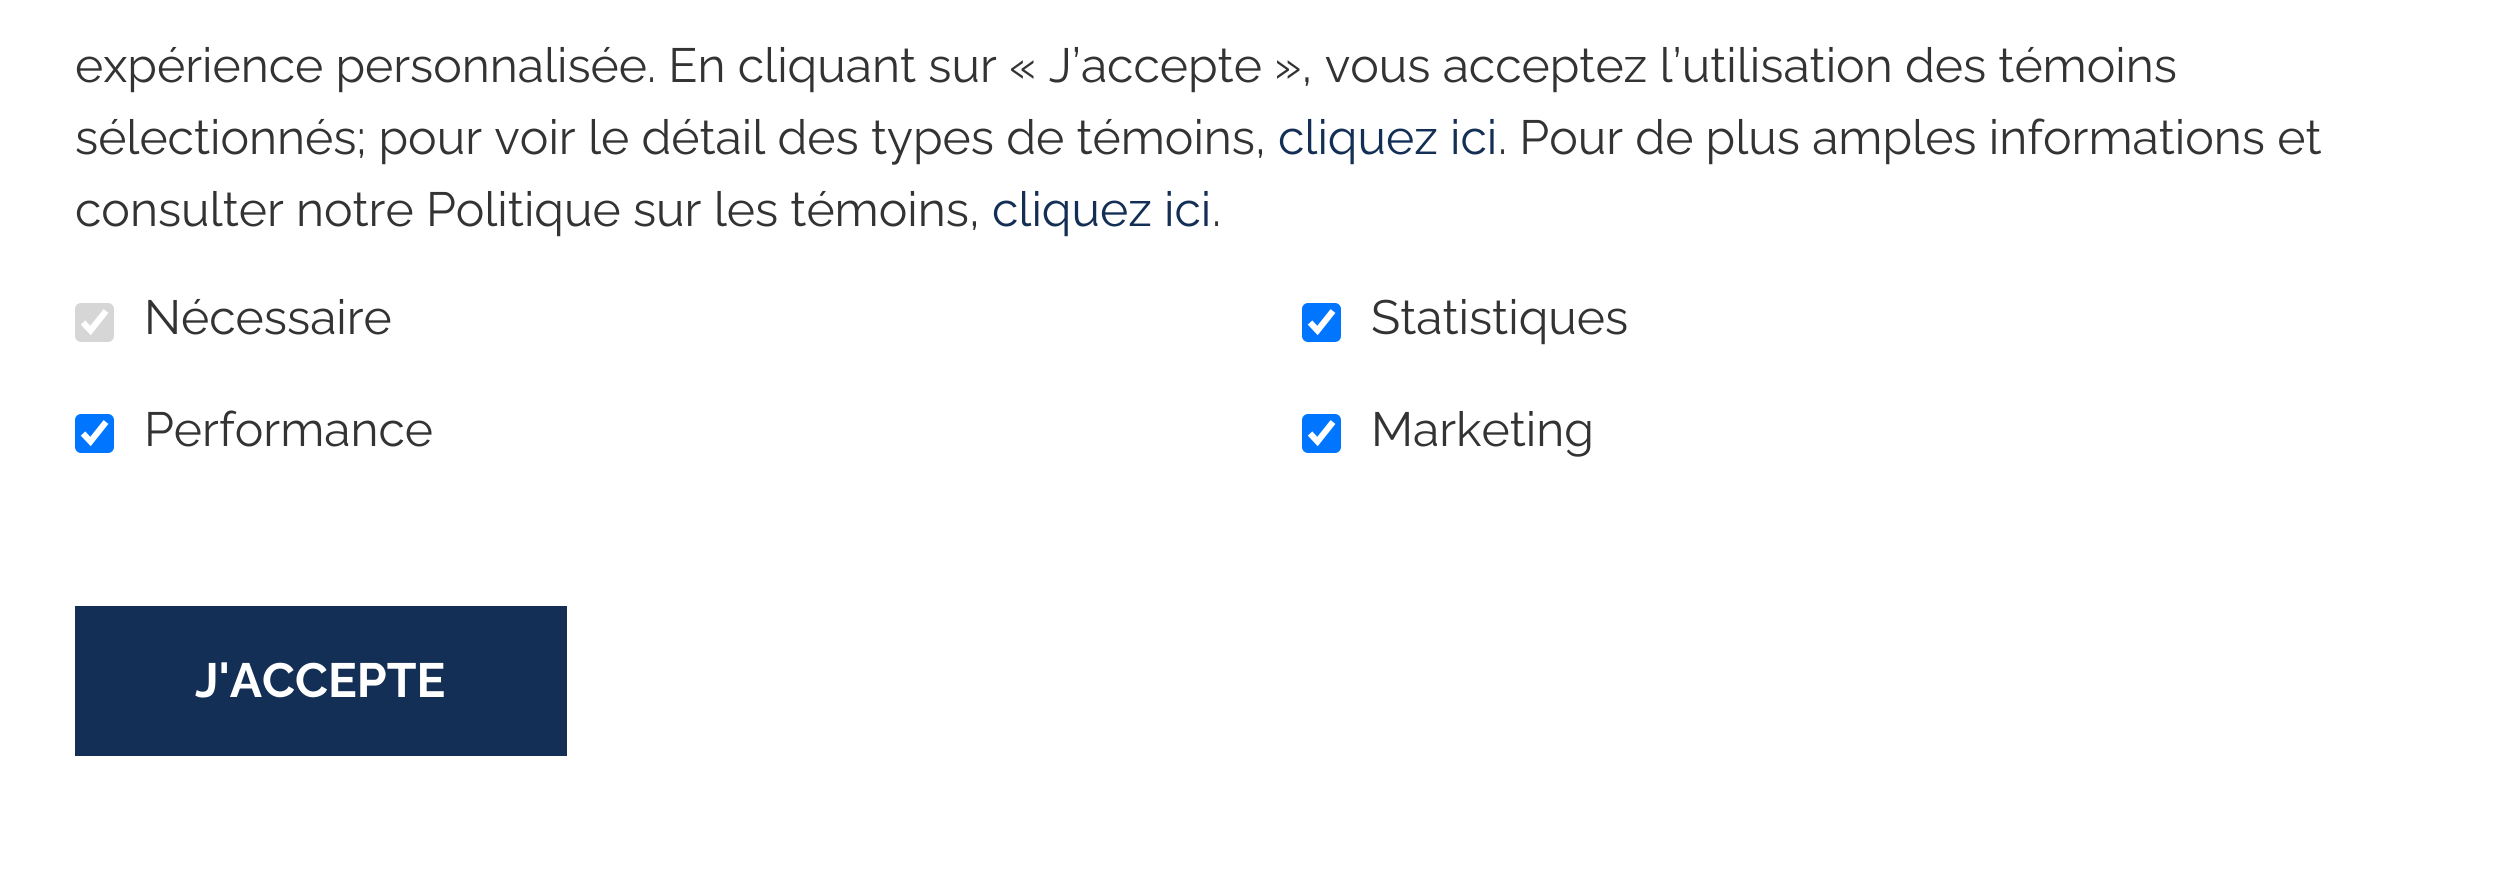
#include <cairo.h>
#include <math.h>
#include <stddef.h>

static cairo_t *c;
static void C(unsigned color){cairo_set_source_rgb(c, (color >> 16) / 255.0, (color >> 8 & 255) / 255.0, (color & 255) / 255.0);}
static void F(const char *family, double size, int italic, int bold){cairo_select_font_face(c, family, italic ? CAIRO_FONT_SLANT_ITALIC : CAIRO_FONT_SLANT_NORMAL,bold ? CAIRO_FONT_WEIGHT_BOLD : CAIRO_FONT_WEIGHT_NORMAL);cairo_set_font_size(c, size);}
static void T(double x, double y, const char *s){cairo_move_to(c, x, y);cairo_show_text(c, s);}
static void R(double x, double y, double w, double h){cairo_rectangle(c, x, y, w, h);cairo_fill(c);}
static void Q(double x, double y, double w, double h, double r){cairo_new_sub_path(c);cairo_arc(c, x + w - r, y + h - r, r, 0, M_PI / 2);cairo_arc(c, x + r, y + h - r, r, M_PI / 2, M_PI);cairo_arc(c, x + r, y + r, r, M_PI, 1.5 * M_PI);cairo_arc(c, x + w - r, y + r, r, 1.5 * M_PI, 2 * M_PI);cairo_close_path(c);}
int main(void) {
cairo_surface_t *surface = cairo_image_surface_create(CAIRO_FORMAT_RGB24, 2512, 874);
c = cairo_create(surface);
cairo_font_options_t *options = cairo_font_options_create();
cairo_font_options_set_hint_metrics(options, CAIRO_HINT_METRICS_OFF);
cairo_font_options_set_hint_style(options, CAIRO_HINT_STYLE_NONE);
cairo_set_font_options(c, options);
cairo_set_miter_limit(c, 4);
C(0xffffff);
cairo_paint(c);
F("Raleway",48,0,0);
C(0x333333);
T(75,82,"expérience personnalisée. En cliquant sur « J’accepte », vous acceptez l’utilisation des témoins");
T(75,154,"sélectionnés; pour voir le détail des types de témoins,");
C(0x142f55);
T(1278,154,"cliquez ici");
C(0x333333);
T(1498,154,". Pour de plus amples informations et");
T(75,226,"consulter notre Politique sur les témoins,");
C(0x142f55);
T(992,226,"cliquez ici");
C(0x333333);
T(1212,226,".");
C(0xd6d6d6);
Q(75,303,39,39,6);
cairo_fill(c);
cairo_new_path(c);
cairo_move_to(c,83,322.5);
cairo_line_to(c,90.5,330.5);
cairo_line_to(c,106,311);
C(0xffffff);
cairo_set_line_width(c,6.2);
cairo_stroke(c);
C(0x333333);
T(144,334,"Nécessaire");
C(0x0075ff);
Q(1302,303,39,39,6);
cairo_fill(c);
cairo_new_path(c);
cairo_move_to(c,1310,322.5);
cairo_line_to(c,1317.5,330.5);
cairo_line_to(c,1333,311);
C(0xffffff);
cairo_stroke(c);
C(0x333333);
T(1371,334,"Statistiques");
C(0x0075ff);
Q(75,414,39,39,6);
cairo_fill(c);
cairo_new_path(c);
cairo_move_to(c,83,433.5);
cairo_line_to(c,90.5,441.5);
cairo_line_to(c,106,422);
C(0xffffff);
cairo_stroke(c);
C(0x333333);
T(144,446,"Performance");
C(0x0075ff);
Q(1302,414,39,39,6);
cairo_fill(c);
cairo_new_path(c);
cairo_move_to(c,1310,433.5);
cairo_line_to(c,1317.5,441.5);
cairo_line_to(c,1333,422);
C(0xffffff);
cairo_stroke(c);
C(0x333333);
T(1371,446,"Marketing");
C(0x142f55);
R(75,606,492,150);
F("Raleway",48,0,1);
C(0xffffff);
T(195,697,"J'ACCEPTE");
cairo_surface_write_to_png(surface, "o.png");
cairo_font_options_destroy(options);
cairo_destroy(c);
cairo_surface_destroy(surface);
return 0;
}
